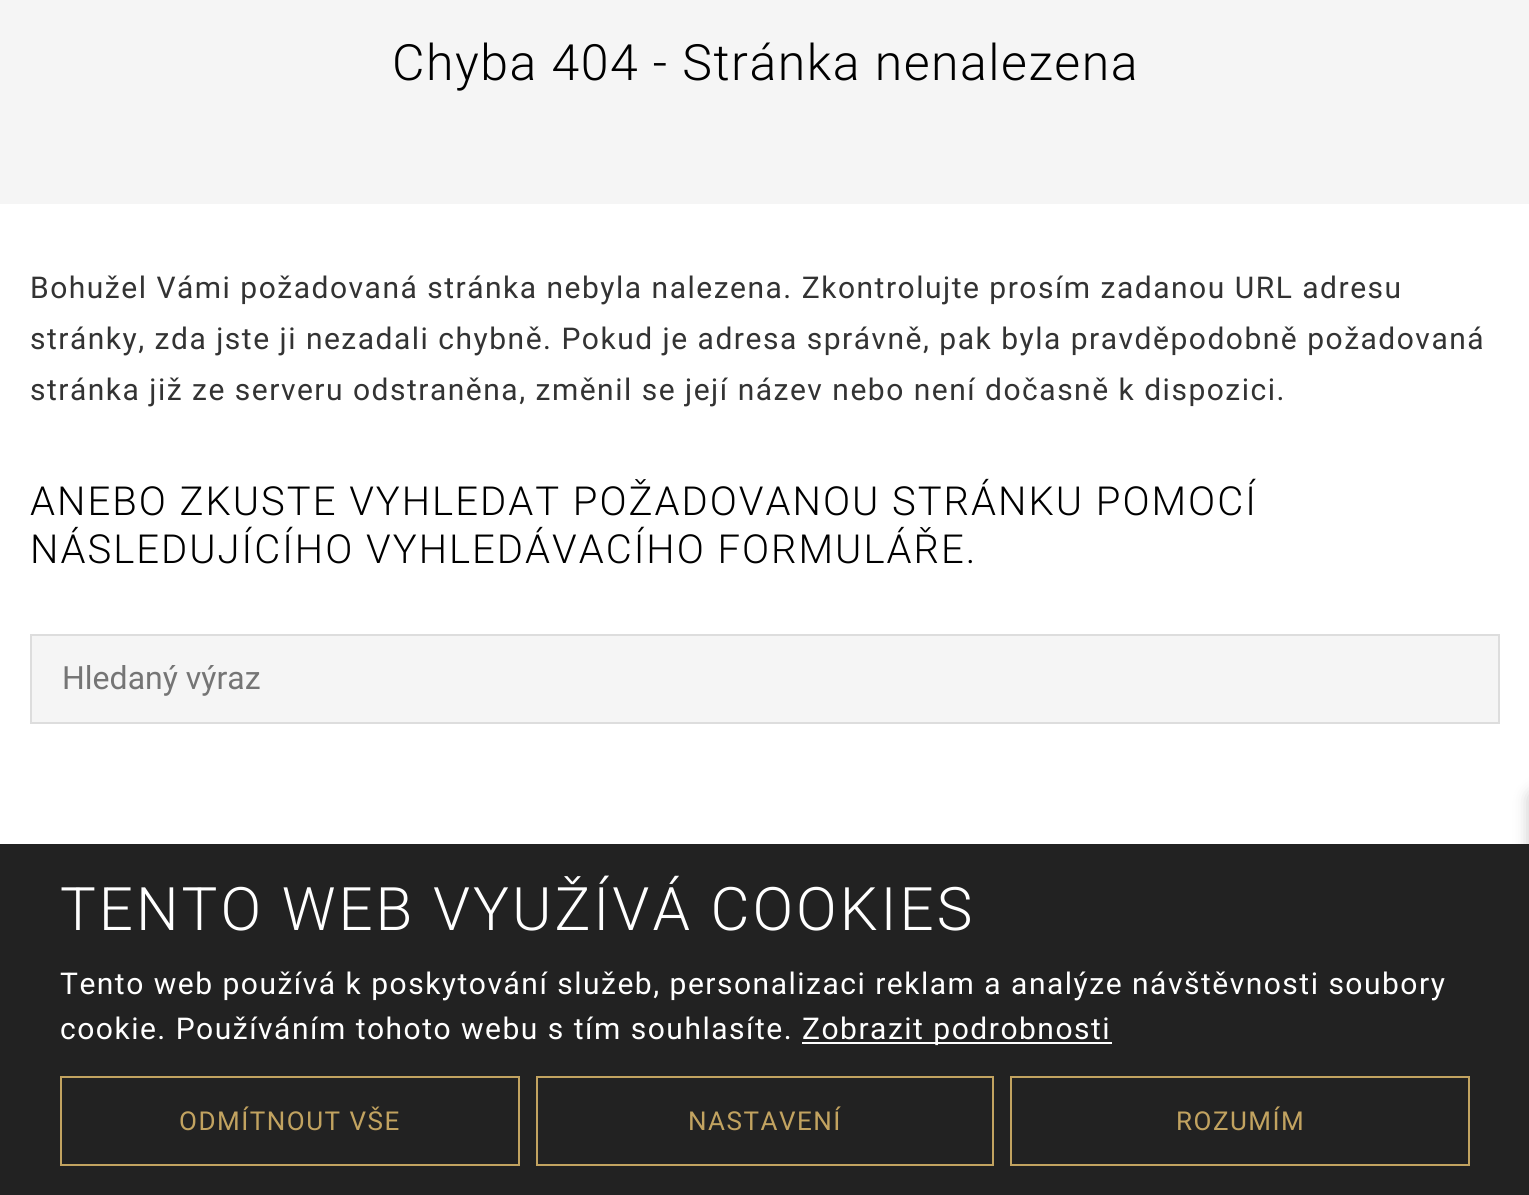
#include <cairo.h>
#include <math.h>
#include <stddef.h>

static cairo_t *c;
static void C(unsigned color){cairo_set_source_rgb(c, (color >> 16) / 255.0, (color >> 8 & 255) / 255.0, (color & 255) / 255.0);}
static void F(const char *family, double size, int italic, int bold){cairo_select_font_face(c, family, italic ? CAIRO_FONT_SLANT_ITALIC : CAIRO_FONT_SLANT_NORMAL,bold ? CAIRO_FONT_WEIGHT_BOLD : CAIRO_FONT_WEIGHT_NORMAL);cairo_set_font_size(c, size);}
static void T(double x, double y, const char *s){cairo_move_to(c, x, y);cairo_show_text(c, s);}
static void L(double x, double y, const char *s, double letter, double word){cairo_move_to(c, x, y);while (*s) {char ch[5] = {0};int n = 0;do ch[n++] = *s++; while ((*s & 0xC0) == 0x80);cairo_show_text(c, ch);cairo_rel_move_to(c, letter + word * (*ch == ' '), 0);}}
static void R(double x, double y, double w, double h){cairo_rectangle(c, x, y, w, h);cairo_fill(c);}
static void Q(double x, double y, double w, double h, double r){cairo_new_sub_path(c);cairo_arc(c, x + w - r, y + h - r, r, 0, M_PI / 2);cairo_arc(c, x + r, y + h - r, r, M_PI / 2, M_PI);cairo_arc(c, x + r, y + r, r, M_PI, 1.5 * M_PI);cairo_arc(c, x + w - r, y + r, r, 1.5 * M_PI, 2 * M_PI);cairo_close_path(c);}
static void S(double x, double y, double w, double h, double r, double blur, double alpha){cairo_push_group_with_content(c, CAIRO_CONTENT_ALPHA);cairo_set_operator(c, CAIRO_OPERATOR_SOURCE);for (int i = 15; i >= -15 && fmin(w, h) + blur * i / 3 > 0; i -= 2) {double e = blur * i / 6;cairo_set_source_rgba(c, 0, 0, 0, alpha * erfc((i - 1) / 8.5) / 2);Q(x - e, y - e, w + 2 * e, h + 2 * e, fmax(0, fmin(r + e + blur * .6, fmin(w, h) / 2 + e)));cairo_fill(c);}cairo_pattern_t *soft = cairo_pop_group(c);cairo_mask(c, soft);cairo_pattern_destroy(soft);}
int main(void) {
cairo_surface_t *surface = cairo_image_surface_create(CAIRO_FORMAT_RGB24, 1529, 1195);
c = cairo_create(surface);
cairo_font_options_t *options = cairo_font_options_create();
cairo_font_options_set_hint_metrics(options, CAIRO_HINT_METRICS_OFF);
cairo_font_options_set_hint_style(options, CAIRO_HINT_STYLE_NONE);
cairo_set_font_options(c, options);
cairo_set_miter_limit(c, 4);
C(0xffffff);
cairo_paint(c);
C(0xf5f5f5);
R(0,0,1529,204);
F("Roboto Light",50,0,0);
C(0x000000);
L(392,80,"Chyba 404 - Stránka nenalezena",1.5,0);
F("Roboto",30,0,0);
C(0x333333);
L(30,298,"Bohužel Vámi požadovaná stránka nebyla nalezena. Zkontrolujte prosím zadanou URL adresu",1.5,0);
L(30,349,"stránky, zda jste ji nezadali chybně. Pokud je adresa správně, pak byla pravděpodobně požadovaná",1.5,0);
L(30,400,"stránka již ze serveru odstraněna, změnil se její název nebo není dočasně k dispozici.",1.5,0);
F("Roboto Light",40,0,0);
C(0x000000);
L(30,515,"ANEBO ZKUSTE VYHLEDAT POŽADOVANOU STRÁNKU POMOCÍ",2,0);
L(30,563,"NÁSLEDUJÍCÍHO VYHLEDÁVACÍHO FORMULÁŘE.",2,0);
C(0xf5f5f5);
cairo_rectangle(c,31,635,1468,88);
cairo_fill_preserve(c);
C(0xdddddd);
cairo_stroke(c);
F("Roboto",32,0,0);
C(0x757575);
T(62,689,"Hledaný výraz");
C(0x808080);
S(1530,792,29,364,6,8,.5);
C(0x222222);
R(0,844,1529,351);
F("Roboto Light",60,0,0);
C(0xffffff);
L(60,930,"TENTO WEB VYUŽÍVÁ COOKIES",3,0);
F("Roboto",30,0,0);
L(60,994,"Tento web používá k poskytování služeb, personalizaci reklam a analýze návštěvnosti soubory",1.5,0);
L(60,1039,"cookie. Používáním tohoto webu s tím souhlasíte.",1.5,0);
R(802,1042,310,2);
L(802,1039,"Zobrazit podrobnosti",1.5,0);
cairo_rectangle(c,61,1077,458,88);
C(0xc2a360);
cairo_stroke(c);
F("Roboto",26,0,0);
L(179,1130,"ODMÍTNOUT VŠE",1.5,0);
cairo_rectangle(c,537,1077,456,88);
cairo_stroke(c);
L(688,1130,"NASTAVENÍ",1.5,0);
cairo_rectangle(c,1011,1077,458,88);
cairo_stroke(c);
L(1176,1130,"ROZUMÍM",1.5,0);
cairo_surface_write_to_png(surface, "o.png");
cairo_font_options_destroy(options);
cairo_destroy(c);
cairo_surface_destroy(surface);
return 0;
}
